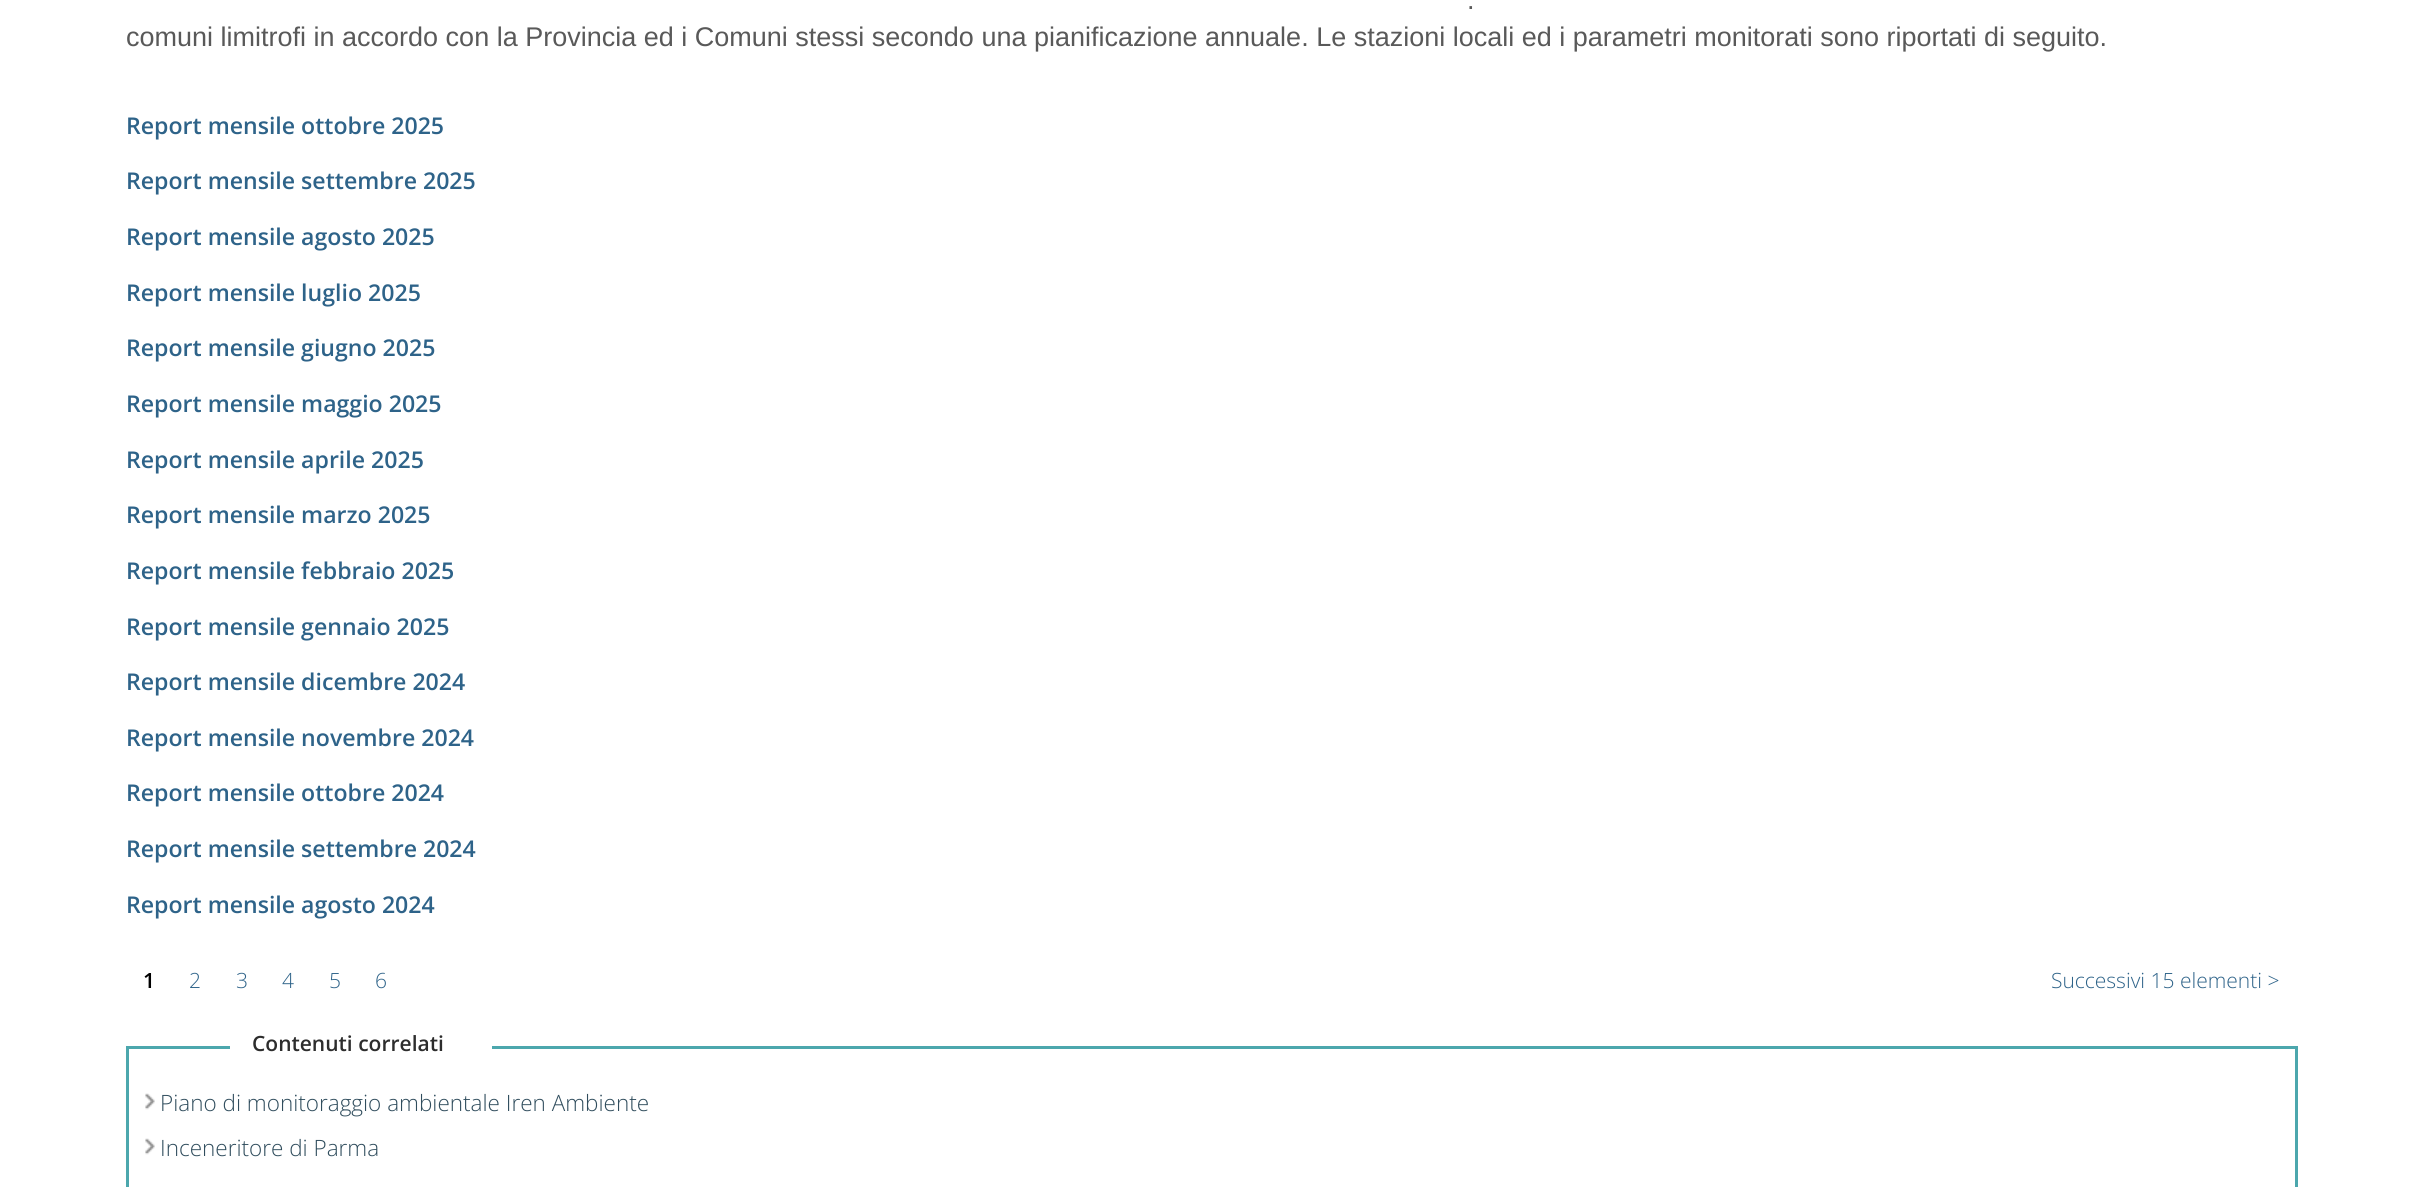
#include <cairo.h>
#include <math.h>
#include <stddef.h>

static cairo_t *c;
static void C(unsigned color){cairo_set_source_rgb(c, (color >> 16) / 255.0, (color >> 8 & 255) / 255.0, (color & 255) / 255.0);}
static void F(const char *family, double size, int italic, int bold){cairo_select_font_face(c, family, italic ? CAIRO_FONT_SLANT_ITALIC : CAIRO_FONT_SLANT_NORMAL,bold ? CAIRO_FONT_WEIGHT_BOLD : CAIRO_FONT_WEIGHT_NORMAL);cairo_set_font_size(c, size);}
static void T(double x, double y, const char *s){cairo_move_to(c, x, y);cairo_show_text(c, s);}
static void R(double x, double y, double w, double h){cairo_rectangle(c, x, y, w, h);cairo_fill(c);}
static void I(const char *path, double x, double y, double w, double h){cairo_surface_t *image = cairo_image_surface_create_from_png(path);cairo_save(c);cairo_set_source_surface(c, image, x, y);cairo_rectangle(c, x, y, w, h);cairo_fill(c);cairo_restore(c);cairo_surface_destroy(image);}
int main(void) {
cairo_surface_t *surface = cairo_image_surface_create(CAIRO_FORMAT_RGB24, 2424, 1187);
c = cairo_create(surface);
cairo_font_options_t *options = cairo_font_options_create();
cairo_font_options_set_hint_metrics(options, CAIRO_HINT_METRICS_OFF);
cairo_font_options_set_hint_style(options, CAIRO_HINT_STYLE_NONE);
cairo_set_font_options(c, options);
cairo_set_miter_limit(c, 4);
C(0xffffff);
cairo_paint(c);
F("Liberation Sans",27,0,0);
C(0x595959);
T(1467,9,".");
T(126,46,"comuni limitrofi in accordo con la Provincia ed i Comuni stessi secondo una pianificazione annuale. Le stazioni locali ed i parametri monitorati sono riportati di seguito.");
F("Open Sans SemiBold",23.1,0,0);
C(0x2e6389);
T(126,134,"Report mensile ottobre 2025");
T(126,189,"Report mensile settembre 2025");
T(126,245,"Report mensile agosto 2025");
T(126,301,"Report mensile luglio 2025");
T(126,356,"Report mensile giugno 2025");
T(126,412,"Report mensile maggio 2025");
T(126,468,"Report mensile aprile 2025");
T(126,523,"Report mensile marzo 2025");
T(126,579,"Report mensile febbraio 2025");
T(126,635,"Report mensile gennaio 2025");
T(126,690,"Report mensile dicembre 2024");
T(126,746,"Report mensile novembre 2024");
T(126,801,"Report mensile ottobre 2024");
T(126,857,"Report mensile settembre 2024");
T(126,913,"Report mensile agosto 2024");
F("Open Sans SemiBold",21,0,0);
C(0x000000);
T(143,988,"1");
F("Open Sans Light",21,0,0);
C(0x2e6389);
T(189,988,"2");
T(236,988,"3");
T(282,988,"4");
T(329,988,"5");
T(375,988,"6");
T(2051,988,"Successivi 15 elementi >");
cairo_rectangle(c,127.5,1047.5,2169,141);
C(0x4ca7ad);
cairo_set_line_width(c,3);
cairo_stroke(c);
C(0xffffff);
R(230,1046,262,3);
F("Open Sans SemiBold",21,0,0);
C(0x2d2d2d);
T(252,1051,"Contenuti correlati");
I("1.png",145,1093,10,17);
F("Open Sans Light",22.5,0,0);
C(0x304d5d);
T(160,1111,"Piano di monitoraggio ambientale Iren Ambiente");
I("1.png",145,1138,10,17);
T(160,1156,"Inceneritore di Parma");
cairo_surface_write_to_png(surface, "o.png");
cairo_font_options_destroy(options);
cairo_destroy(c);
cairo_surface_destroy(surface);
return 0;
}
